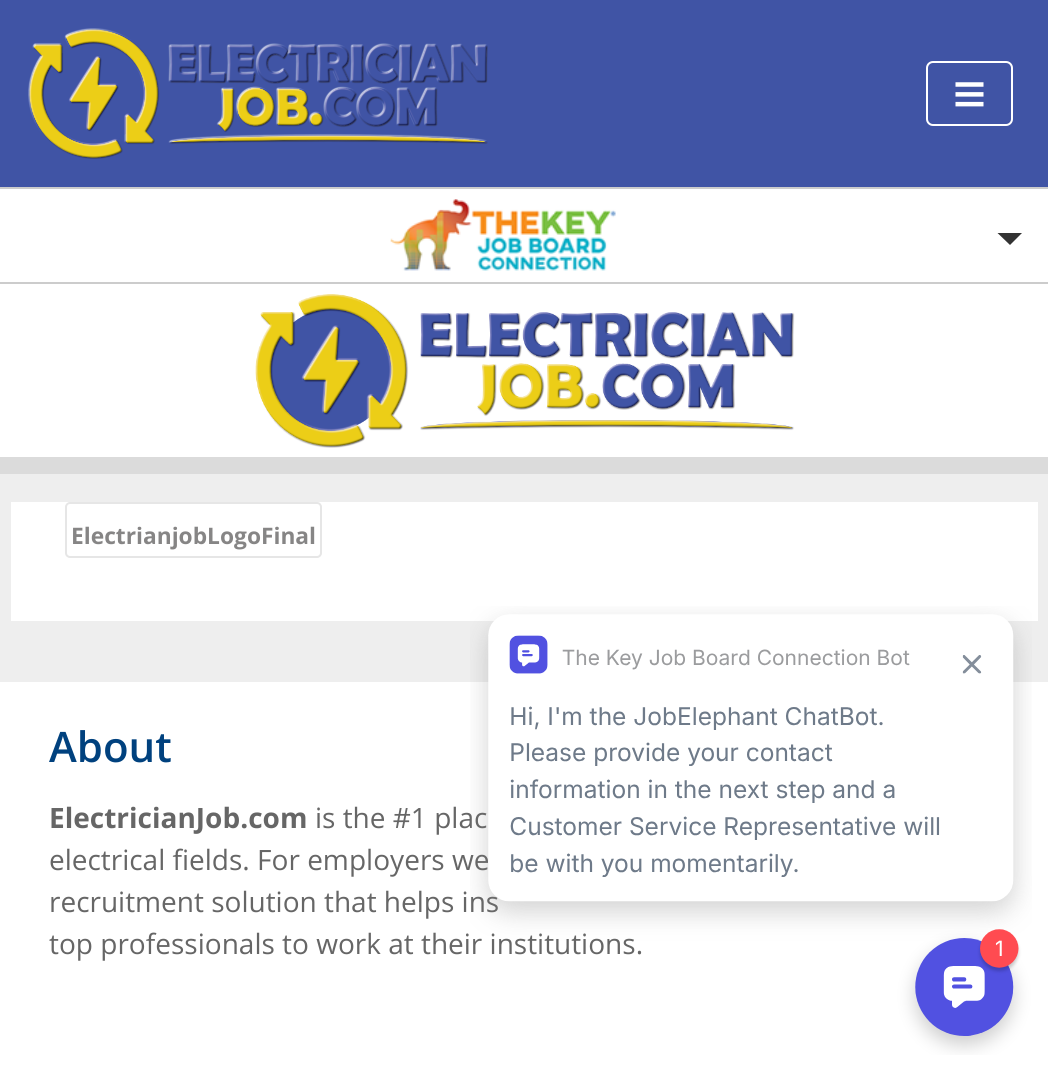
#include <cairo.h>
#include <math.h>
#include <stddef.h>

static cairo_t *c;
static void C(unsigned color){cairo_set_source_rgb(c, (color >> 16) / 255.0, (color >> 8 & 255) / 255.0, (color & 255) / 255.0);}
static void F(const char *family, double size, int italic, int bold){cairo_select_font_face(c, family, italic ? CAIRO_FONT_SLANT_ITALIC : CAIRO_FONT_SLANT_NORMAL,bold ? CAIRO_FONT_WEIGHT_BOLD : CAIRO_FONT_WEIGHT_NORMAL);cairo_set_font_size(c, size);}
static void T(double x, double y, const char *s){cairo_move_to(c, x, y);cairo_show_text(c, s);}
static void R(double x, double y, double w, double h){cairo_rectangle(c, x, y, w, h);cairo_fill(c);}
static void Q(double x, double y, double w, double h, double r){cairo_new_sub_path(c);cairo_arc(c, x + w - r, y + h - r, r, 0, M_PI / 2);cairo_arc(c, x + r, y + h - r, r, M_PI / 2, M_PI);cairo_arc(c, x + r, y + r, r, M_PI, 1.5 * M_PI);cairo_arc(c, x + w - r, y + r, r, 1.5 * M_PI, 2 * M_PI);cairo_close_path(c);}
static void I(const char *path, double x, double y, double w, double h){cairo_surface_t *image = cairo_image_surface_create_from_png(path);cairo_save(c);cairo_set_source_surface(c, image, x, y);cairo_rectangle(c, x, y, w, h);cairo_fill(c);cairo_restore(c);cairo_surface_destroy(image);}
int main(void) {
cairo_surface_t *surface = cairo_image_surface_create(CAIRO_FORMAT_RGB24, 1048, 1071);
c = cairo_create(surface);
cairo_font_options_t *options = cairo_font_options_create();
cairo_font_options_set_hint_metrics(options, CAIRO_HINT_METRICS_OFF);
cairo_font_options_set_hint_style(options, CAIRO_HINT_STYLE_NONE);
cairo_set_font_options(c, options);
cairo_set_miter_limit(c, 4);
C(0xeeeeee);
cairo_paint(c);
C(0xffffff);
R(0,284,1048,173);
C(0xdbdbdb);
R(0,457,1048,17);
C(0x4054a5);
R(0,0,1048,187);
I("1.png",28,28,460,131);
Q(927,62,85,63,6);
C(0xffffff);
cairo_stroke(c);
I("2.png",955,82,29,25);
R(0,189,1048,93);
C(0xcccccc);
R(0,187,1048,2);
R(0,282,1048,2);
I("3.png",390,199,226,72);
C(0x333333);
cairo_new_path(c);
cairo_move_to(c,997.5,233);
cairo_line_to(c,1022,233);
cairo_line_to(c,1010,245);
cairo_close_path(c);
cairo_fill(c);
I("4.png",255,294,540,154);
C(0xffffff);
R(11,502,1027,119);
Q(66,503,255,54,4);
C(0xe6e6e6);
cairo_stroke(c);
F("Open Sans",22.75,0,1);
C(0x868585);
T(71,544,"ElectrianjobLogoFinal");
C(0xffffff);
R(0,682,1048,389);
F("Open Sans SemiBold",42,0,0);
C(0x00417e);
T(49,762,"About");
F("Open Sans",28,0,1);
C(0x666666);
T(49,828,"ElectricianJob.com");
F("Open Sans",28,0,0);
T(315,828,"is the #1 plac");
T(49,870,"electrical fields. For employers we");
T(49,912,"recruitment solution that helps ins");
T(49,954,"top professionals to work at their institutions.");
I("5.png",470,606,562,449);
cairo_surface_write_to_png(surface, "o.png");
cairo_font_options_destroy(options);
cairo_destroy(c);
cairo_surface_destroy(surface);
return 0;
}
